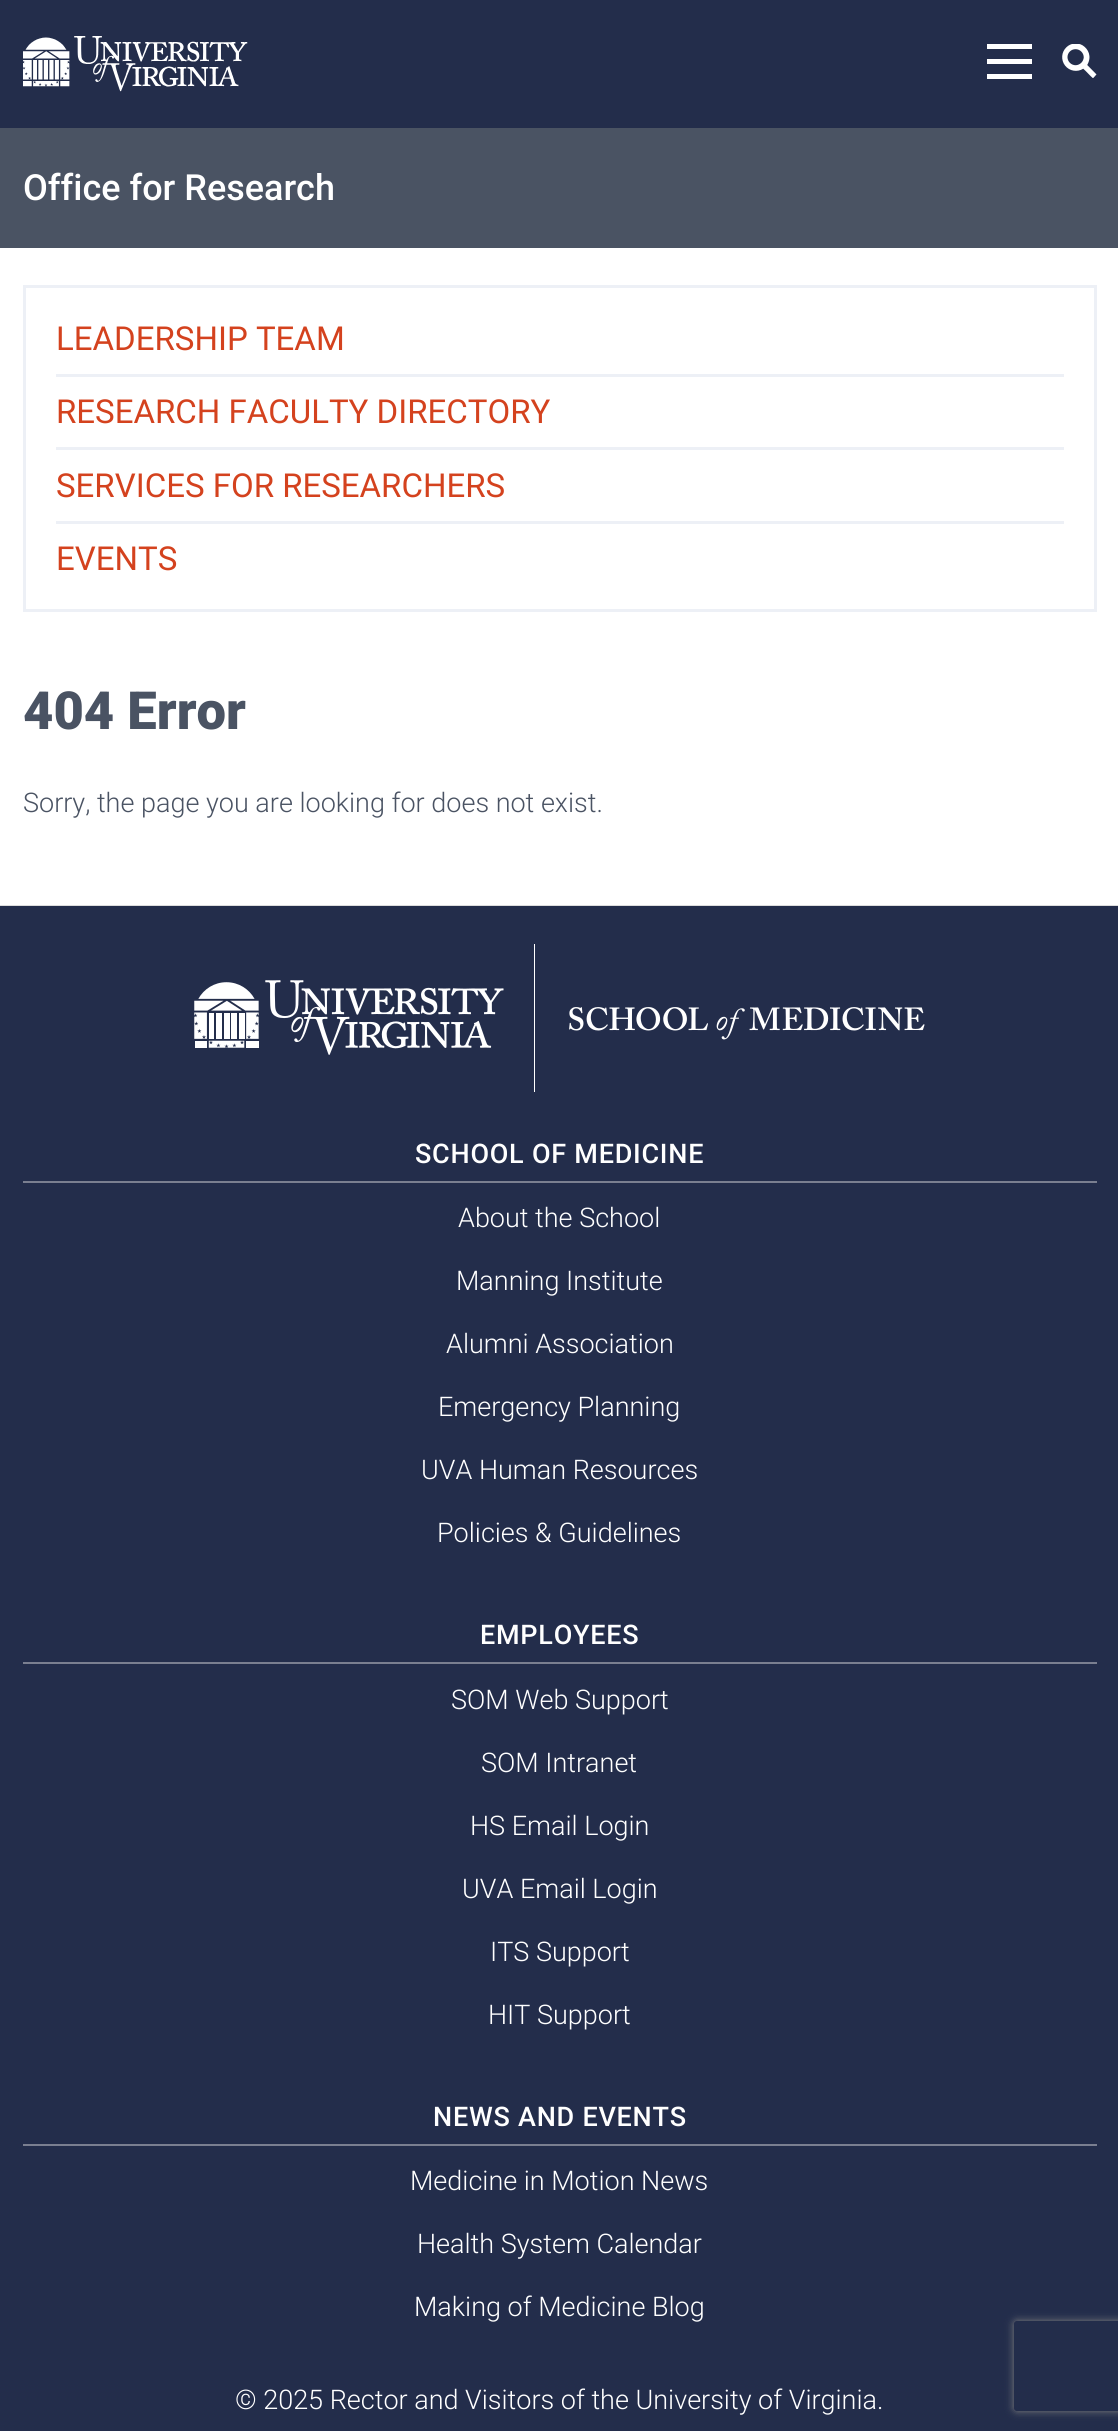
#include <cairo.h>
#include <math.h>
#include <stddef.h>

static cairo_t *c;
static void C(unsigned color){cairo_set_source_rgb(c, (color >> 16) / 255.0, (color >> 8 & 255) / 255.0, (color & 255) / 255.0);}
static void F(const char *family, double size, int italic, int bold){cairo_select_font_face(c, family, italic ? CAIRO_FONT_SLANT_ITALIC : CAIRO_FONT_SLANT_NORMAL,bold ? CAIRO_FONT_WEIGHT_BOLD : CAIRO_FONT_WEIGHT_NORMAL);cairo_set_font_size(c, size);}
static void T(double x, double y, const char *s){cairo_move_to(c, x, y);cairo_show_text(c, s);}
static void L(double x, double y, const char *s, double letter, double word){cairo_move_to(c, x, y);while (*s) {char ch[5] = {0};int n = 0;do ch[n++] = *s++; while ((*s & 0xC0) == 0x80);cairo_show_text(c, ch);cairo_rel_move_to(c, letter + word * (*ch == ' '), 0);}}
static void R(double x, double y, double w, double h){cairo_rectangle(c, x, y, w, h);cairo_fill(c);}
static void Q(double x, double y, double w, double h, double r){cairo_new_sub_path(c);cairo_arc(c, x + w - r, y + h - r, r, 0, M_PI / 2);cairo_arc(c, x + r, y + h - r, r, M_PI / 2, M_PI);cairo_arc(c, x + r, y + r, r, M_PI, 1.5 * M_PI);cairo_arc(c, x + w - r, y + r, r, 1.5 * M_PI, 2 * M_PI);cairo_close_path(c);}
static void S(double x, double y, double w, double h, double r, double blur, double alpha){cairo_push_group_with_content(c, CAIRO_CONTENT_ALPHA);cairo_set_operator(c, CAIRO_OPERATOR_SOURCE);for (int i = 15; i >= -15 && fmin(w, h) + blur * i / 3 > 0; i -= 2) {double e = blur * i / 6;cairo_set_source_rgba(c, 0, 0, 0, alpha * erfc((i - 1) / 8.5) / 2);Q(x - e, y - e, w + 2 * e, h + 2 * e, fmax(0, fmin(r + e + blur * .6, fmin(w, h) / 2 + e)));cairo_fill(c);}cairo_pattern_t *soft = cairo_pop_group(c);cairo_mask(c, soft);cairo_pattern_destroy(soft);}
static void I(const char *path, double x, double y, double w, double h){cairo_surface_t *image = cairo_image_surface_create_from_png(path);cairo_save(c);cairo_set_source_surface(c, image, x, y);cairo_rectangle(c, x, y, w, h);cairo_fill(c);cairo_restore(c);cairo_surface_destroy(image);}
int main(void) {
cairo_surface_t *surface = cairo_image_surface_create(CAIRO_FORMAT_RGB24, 1118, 2431);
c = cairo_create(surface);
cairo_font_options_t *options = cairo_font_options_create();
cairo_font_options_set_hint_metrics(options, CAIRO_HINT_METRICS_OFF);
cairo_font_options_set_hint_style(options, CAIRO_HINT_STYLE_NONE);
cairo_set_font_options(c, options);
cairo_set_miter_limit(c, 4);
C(0xffffff);
cairo_paint(c);
C(0x232d4b);
R(0,0,1118,128);
I("1.png",23,36,225,56);
C(0xffffff);
R(987,59,45,5);
R(987,44,45,5);
R(987,74,45,5);
I("2.png",1062,44,35,34);
C(0x4a5363);
R(0,128,1118,120);
F("Roboto Medium",36,0,0);
C(0xffffff);
T(23,200,"Office for Research");
cairo_rectangle(c,24.5,286.5,1071,324);
C(0xedf0f6);
cairo_set_line_width(c,3);
cairo_stroke(c);
R(56,374,1008,3);
F("Roboto",33,0,0);
C(0xd4421e);
T(56,350,"LEADERSHIP TEAM");
C(0xedf0f6);
R(56,447,1008,3);
C(0xd4421e);
T(56,423,"RESEARCH FACULTY DIRECTORY");
C(0xedf0f6);
R(56,521,1008,3);
C(0xd4421e);
T(56,497,"SERVICES FOR RESEARCHERS");
T(56,570,"EVENTS");
F("Roboto Black",52.5,0,0);
C(0x4a5363);
T(23,729,"404 Error");
F("Roboto Light",27,0,0);
T(23,812,"Sorry, the page you are looking for does not exist.");
C(0xdddddd);
R(0,905,1118,1);
C(0x232d4b);
R(0,906,1118,1525);
I("3.png",194,944,731,148);
C(0x7a7f90);
R(23,1181,1074,2);
F("Roboto Medium",27,0,0);
C(0xffffff);
L(415,1163,"SCHOOL OF MEDICINE",.75,0);
F("Roboto Light",27,0,0);
T(458,1227,"About the School");
T(456,1290,"Manning Institute");
T(446,1353,"Alumni Association");
T(438,1416,"Emergency Planning");
T(421,1479,"UVA Human Resources");
T(437,1542,"Policies & Guidelines");
C(0x7a7f90);
R(23,1662,1074,2);
F("Roboto Medium",27,0,0);
C(0xffffff);
L(480,1644,"EMPLOYEES",.75,0);
F("Roboto Light",27,0,0);
T(451,1709,"SOM Web Support");
T(481,1772,"SOM Intranet");
T(470,1835,"HS Email Login");
T(462,1898,"UVA Email Login");
T(490,1961,"ITS Support");
T(488,2024,"HIT Support");
C(0x7a7f90);
R(23,2144,1074,2);
F("Roboto Medium",27,0,0);
C(0xffffff);
L(433,2126,"NEWS AND EVENTS",.75,0);
F("Roboto Light",27,0,0);
T(410,2190,"Medicine in Motion News");
T(417,2253,"Health System Calendar");
T(414,2316,"Making of Medicine Blog");
T(235,2409,"© 2025 Rector and Visitors of the University of Virginia.");
cairo_save(c);
cairo_set_fill_rule(c,CAIRO_FILL_RULE_EVEN_ODD);
cairo_new_path(c);
cairo_move_to(c,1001,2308);
cairo_line_to(c,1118,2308);
cairo_line_to(c,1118,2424);
cairo_line_to(c,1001,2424);
cairo_close_path(c);
cairo_move_to(c,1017,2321);
cairo_line_to(c,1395,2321);
cairo_curve_to(c,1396.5,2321,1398,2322.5,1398,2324);
cairo_line_to(c,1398,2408);
cairo_curve_to(c,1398,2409.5,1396.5,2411,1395,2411);
cairo_line_to(c,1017,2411);
cairo_curve_to(c,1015.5,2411,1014,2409.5,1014,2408);
cairo_line_to(c,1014,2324);
cairo_curve_to(c,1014,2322.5,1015.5,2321,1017,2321);
cairo_close_path(c);
cairo_clip(c);
C(0x808080);
S(1014,2321,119,90,3,4,1);
cairo_restore(c);
cairo_surface_write_to_png(surface, "o.png");
cairo_font_options_destroy(options);
cairo_destroy(c);
cairo_surface_destroy(surface);
return 0;
}
